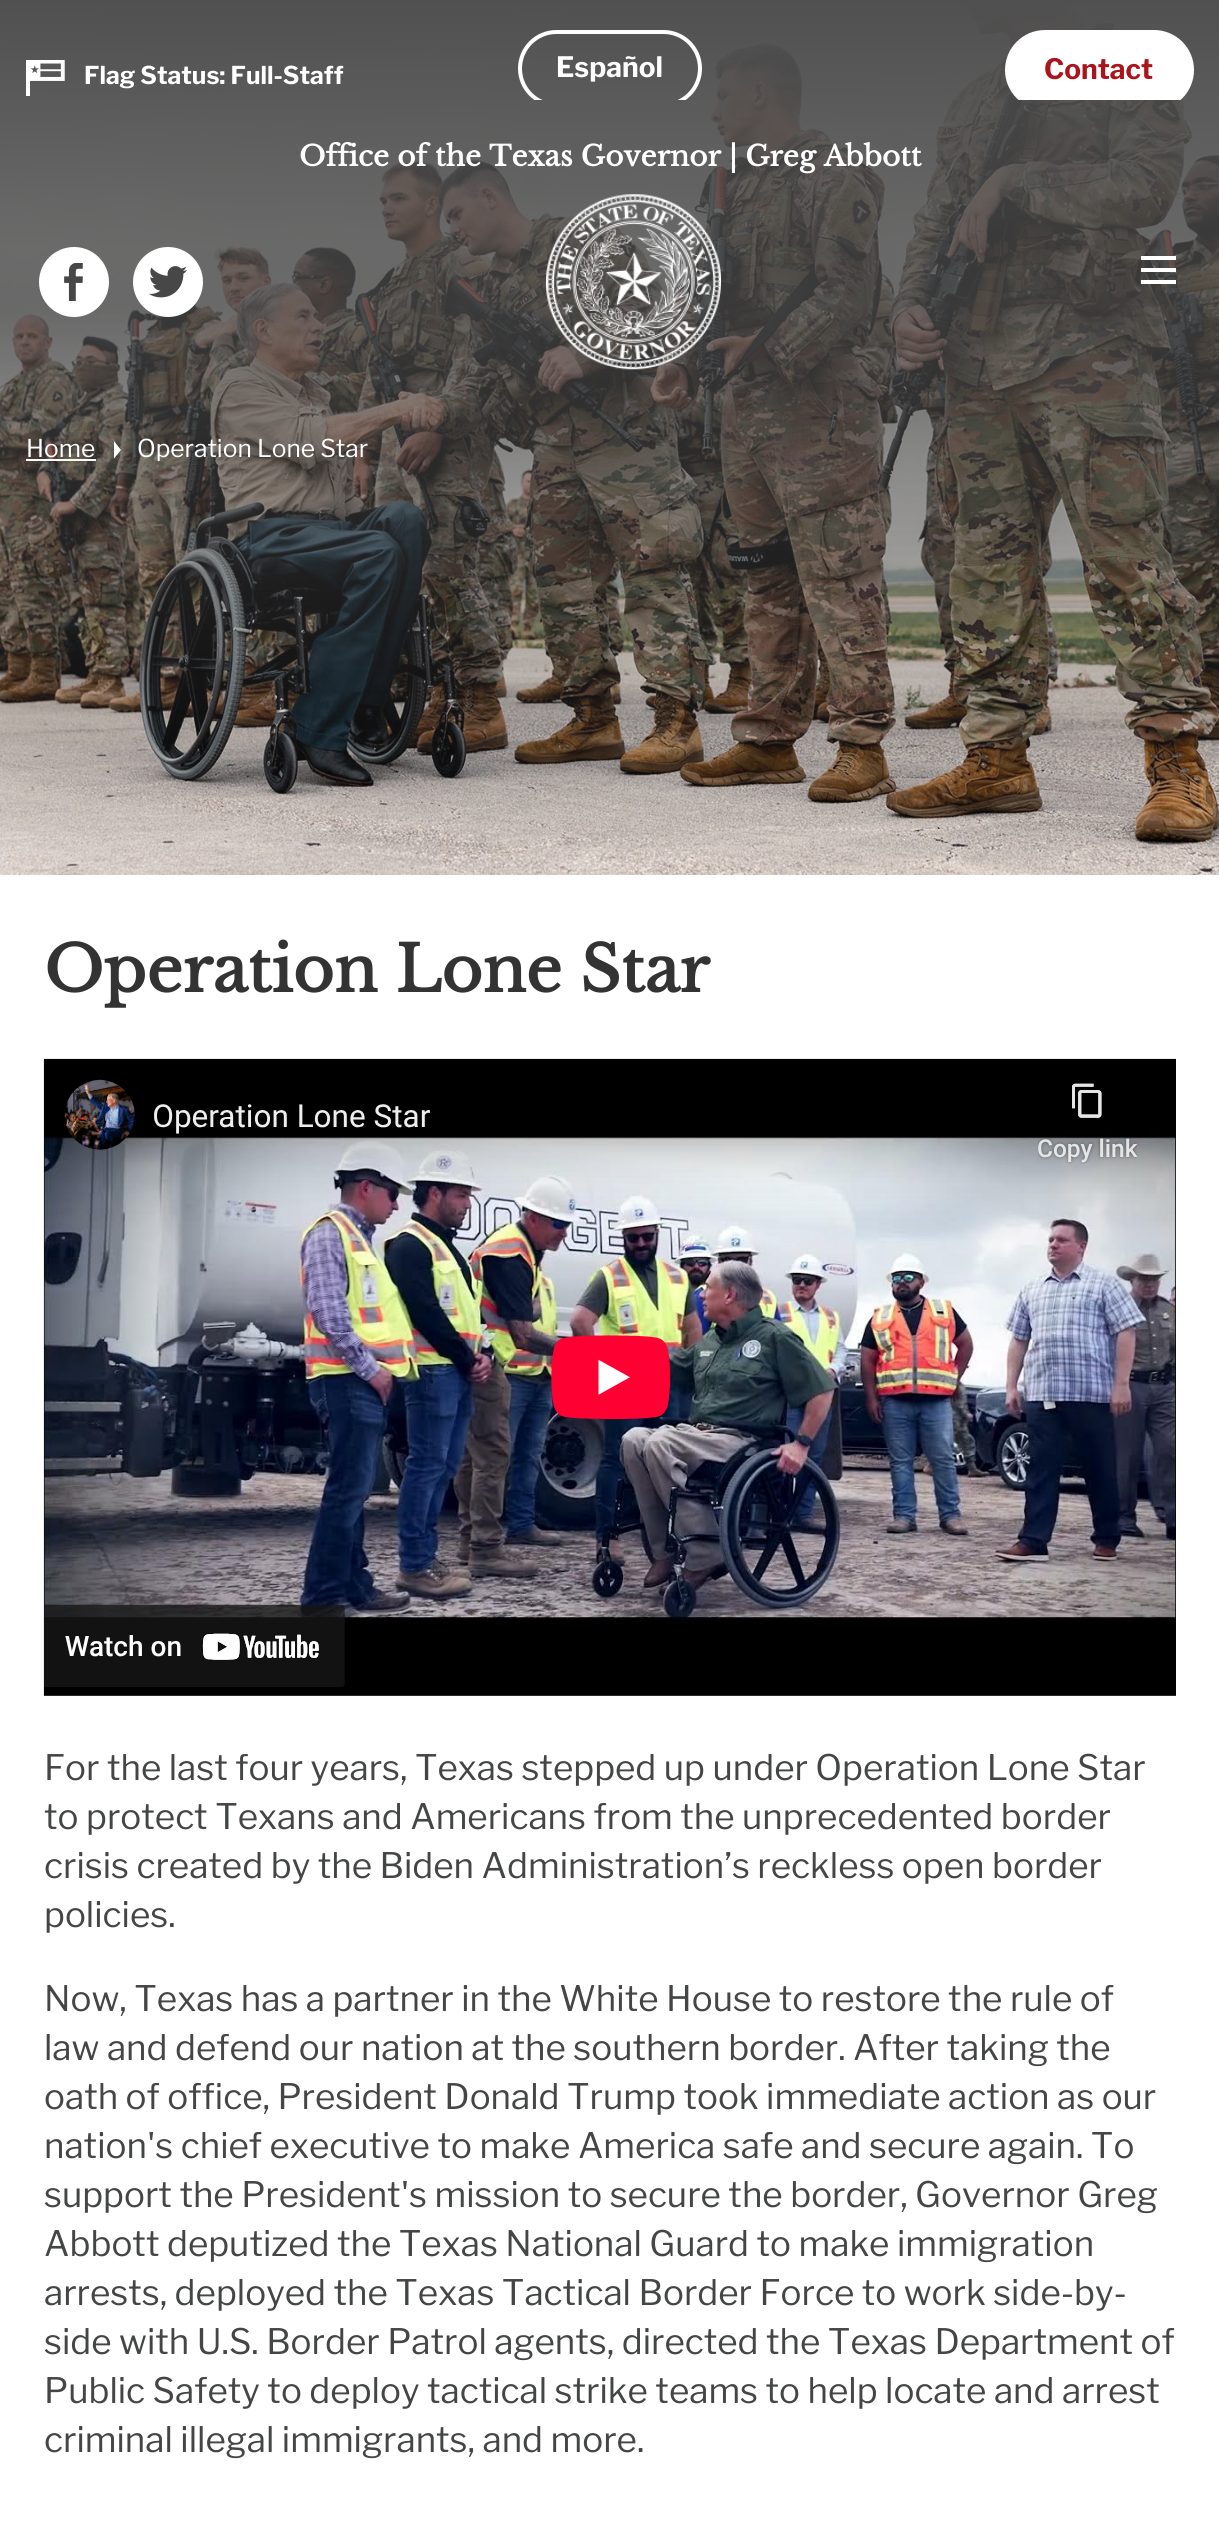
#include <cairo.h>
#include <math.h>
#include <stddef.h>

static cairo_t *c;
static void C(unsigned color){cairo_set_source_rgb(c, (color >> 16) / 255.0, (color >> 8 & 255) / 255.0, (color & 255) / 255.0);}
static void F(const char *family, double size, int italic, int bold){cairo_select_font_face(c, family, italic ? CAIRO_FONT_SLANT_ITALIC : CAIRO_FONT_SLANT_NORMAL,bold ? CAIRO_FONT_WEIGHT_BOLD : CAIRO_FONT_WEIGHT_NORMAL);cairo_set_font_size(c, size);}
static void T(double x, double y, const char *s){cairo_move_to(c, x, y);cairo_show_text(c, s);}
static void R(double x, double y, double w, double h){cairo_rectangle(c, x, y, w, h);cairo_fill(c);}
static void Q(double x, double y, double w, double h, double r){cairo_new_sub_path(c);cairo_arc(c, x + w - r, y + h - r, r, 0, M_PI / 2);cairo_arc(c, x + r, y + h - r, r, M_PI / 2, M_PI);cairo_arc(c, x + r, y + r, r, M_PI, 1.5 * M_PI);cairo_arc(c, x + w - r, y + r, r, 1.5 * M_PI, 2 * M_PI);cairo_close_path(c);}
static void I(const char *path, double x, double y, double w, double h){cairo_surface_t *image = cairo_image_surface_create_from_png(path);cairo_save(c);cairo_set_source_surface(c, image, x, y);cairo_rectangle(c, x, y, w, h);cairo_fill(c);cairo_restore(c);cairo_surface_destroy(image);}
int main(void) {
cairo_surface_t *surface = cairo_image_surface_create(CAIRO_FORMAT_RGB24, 1219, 2531);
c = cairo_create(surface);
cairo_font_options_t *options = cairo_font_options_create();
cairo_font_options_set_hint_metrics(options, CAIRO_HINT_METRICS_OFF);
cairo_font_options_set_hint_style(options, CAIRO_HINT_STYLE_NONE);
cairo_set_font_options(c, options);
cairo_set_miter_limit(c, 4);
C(0xffffff);
cairo_paint(c);
I("1.png",0,0,1219,875);
C(0xffffff);
R(26,60,4,36);
I("2.png",30,60,35,21);
F("Libre Franklin",24.5,0,1);
T(84,84,"Flag Status: Full-Staff");
cairo_save(c);
cairo_rectangle(c,26,30,1168,70);
cairo_clip(c);
Q(520,32,180,73,36.5);
cairo_set_line_width(c,4);
cairo_stroke(c);
cairo_restore(c);
F("Libre Franklin",28,0,1);
T(556,77,"Español");
cairo_save(c);
cairo_rectangle(c,26,30,1168,70);
cairo_clip(c);
Q(1007.5,32.5,184,75,37.5);
cairo_fill_preserve(c);
cairo_set_line_width(c,5);
cairo_stroke(c);
cairo_restore(c);
C(0xab141a);
T(1044,79,"Contact");
F("Libre Baskerville",28,0,1);
C(0xffffff);
T(299,166,"Office of the Texas Governor | Greg Abbott");
cairo_new_path(c);
cairo_arc(c,74,282,35,0,2 * M_PI);
cairo_fill(c);
I("3.png",64,263,19,38);
cairo_arc(c,168,282,35,0,2 * M_PI);
cairo_fill(c);
I("4.png",149,266,38,32);
I("5.png",546,194,175,176);
R(1141,280,35,4);
R(1141,268,35,4);
R(1141,256,35,4);
F("Libre Franklin",24.5,0,0);
T(26,457,"Home");
R(26,459,70,2);
cairo_new_path(c);
cairo_move_to(c,114,458.5);
cairo_line_to(c,114,441);
cairo_line_to(c,121,450);
cairo_close_path(c);
cairo_fill(c);
T(137,457,"Operation Lone Star");
F("Libre Baskerville",63,0,1);
C(0x333333);
T(44,992,"Operation Lone Star");
I("6.png",43,1058,1133,638);
F("Libre Franklin",35,0,0);
C(0x444545);
T(44,1780,"For the last four years, Texas stepped up under Operation Lone Star");
T(44,1829,"to protect Texans and Americans from the unprecedented border");
T(44,1878,"crisis created by the Biden Administration’s reckless open border");
T(44,1927,"policies.");
T(44,2011,"Now, Texas has a partner in the White House to restore the rule of");
T(44,2060,"law and defend our nation at the southern border. After taking the");
T(44,2109,"oath of office, President Donald Trump took immediate action as our");
T(44,2158,"nation's chief executive to make America safe and secure again. To");
T(44,2207,"support the President's mission to secure the border, Governor Greg");
T(44,2256,"Abbott deputized the Texas National Guard to make immigration");
T(44,2305,"arrests, deployed the Texas Tactical Border Force to work side-by-");
T(44,2354,"side with U.S. Border Patrol agents, directed the Texas Department of");
T(44,2403,"Public Safety to deploy tactical strike teams to help locate and arrest");
T(44,2452,"criminal illegal immigrants, and more.");
cairo_surface_write_to_png(surface, "o.png");
cairo_font_options_destroy(options);
cairo_destroy(c);
cairo_surface_destroy(surface);
return 0;
}
